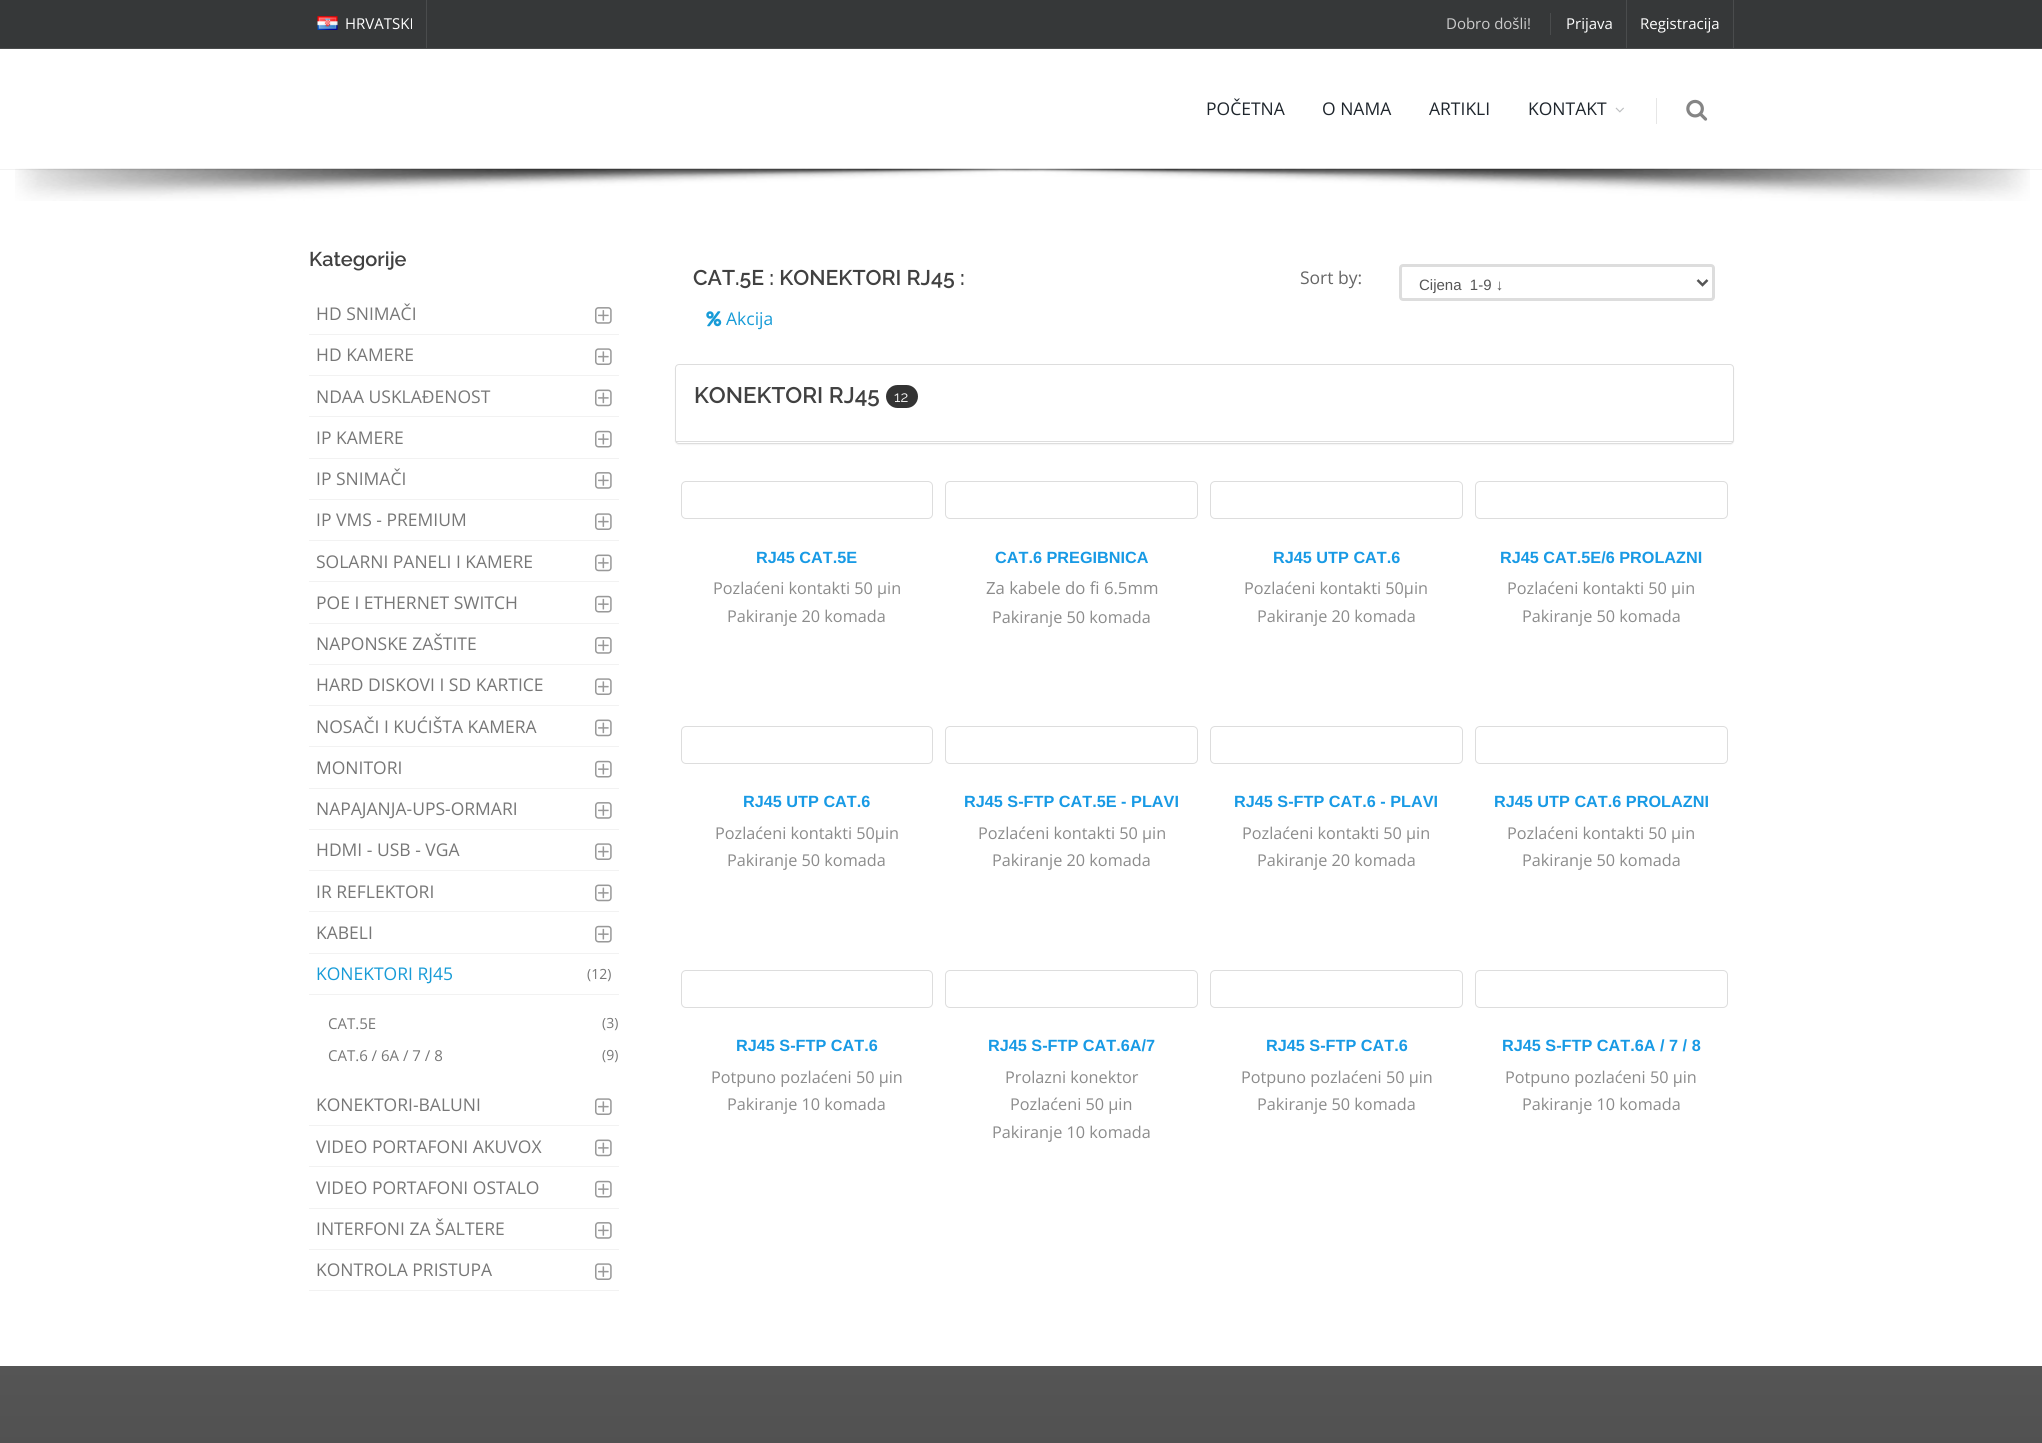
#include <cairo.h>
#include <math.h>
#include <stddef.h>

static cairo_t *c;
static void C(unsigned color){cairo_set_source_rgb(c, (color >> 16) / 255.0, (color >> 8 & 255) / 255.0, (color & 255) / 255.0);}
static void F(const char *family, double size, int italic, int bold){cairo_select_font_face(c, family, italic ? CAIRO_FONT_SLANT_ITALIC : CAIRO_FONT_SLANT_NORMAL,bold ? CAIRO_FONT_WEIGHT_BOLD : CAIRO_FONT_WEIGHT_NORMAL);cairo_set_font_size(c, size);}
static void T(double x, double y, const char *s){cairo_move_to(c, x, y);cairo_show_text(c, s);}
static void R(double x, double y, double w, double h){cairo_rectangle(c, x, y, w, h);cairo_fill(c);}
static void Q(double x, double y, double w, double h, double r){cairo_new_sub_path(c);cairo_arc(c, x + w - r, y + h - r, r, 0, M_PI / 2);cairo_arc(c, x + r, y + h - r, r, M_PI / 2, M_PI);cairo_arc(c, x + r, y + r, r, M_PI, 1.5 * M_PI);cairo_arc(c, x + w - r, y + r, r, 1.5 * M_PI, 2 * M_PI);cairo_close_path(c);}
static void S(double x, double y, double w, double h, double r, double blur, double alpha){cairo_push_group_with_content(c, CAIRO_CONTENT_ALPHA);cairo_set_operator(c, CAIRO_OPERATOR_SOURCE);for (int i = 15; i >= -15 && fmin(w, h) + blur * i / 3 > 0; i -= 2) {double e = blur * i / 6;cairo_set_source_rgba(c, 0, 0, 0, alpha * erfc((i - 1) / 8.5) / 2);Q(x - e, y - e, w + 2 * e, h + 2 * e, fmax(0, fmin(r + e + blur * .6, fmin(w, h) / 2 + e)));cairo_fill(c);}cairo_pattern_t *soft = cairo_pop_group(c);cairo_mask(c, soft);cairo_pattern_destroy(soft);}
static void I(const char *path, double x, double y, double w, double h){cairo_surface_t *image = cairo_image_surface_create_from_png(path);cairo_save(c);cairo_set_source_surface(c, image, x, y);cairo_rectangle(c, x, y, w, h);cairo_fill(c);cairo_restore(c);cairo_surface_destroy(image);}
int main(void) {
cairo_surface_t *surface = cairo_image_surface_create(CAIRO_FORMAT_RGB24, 2042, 1443);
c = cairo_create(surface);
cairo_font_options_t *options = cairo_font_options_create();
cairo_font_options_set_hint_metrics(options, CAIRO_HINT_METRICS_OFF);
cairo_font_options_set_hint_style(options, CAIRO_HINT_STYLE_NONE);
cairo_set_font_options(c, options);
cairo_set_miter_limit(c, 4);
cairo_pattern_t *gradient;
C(0xffffff);
cairo_paint(c);
C(0x363839);
R(0,0,2042,48);
C(0x4a4c4d);
R(0,48,2042,1);
R(426,0,1,48);
I("1.png",317,16,21,14);
F("Open Sans",15,0,0);
C(0xffffff);
T(345,29,"HRVATSKI");
C(0x4a4c4d);
R(1550,13,1,22);
C(0xcccccc);
T(1446,29,"Dobro došli!");
C(0x4a4c4d);
R(1626,0,1,48);
C(0xffffff);
T(1566,29,"Prijava");
C(0x4a4c4d);
R(1733,0,1,48);
C(0xffffff);
T(1640,29,"Registracija");
C(0xf2f2f2);
R(0,169,2042,1);
F("Open Sans",17.5,0,0);
C(0x1f262d);
T(1206,115,"POČETNA");
T(1322,115,"O NAMA");
T(1429,115,"ARTIKLI");
T(1528,115,"KONTAKT");
I("2.png",1615,107,9,6);
C(0xe6e6e6);
R(1656,98,1,26);
I("3.png",1686,99,22,22);
I("4.png",15,168,2015,33);
F("Raleway SemiBold",20,0,0);
C(0x414141);
T(309,266,"Kategorije");
C(0xf2f2f2);
R(309,334,310,1);
F("Open Sans",17.5,0,0);
C(0x777777);
T(316,320,"HD SNIMAČI");
I("5.png",595,307,17,17);
C(0xf2f2f2);
R(309,375,310,1);
C(0x777777);
T(316,361,"HD KAMERE");
I("6.png",595,348,17,17);
C(0xf2f2f2);
R(309,416,310,1);
C(0x777777);
T(316,403,"NDAA USKLAĐENOST");
I("7.png",595,389,17,18);
C(0xf2f2f2);
R(309,458,310,1);
C(0x777777);
T(316,444,"IP KAMERE");
I("8.png",595,430,17,18);
C(0xf2f2f2);
R(309,499,310,1);
C(0x777777);
T(316,485,"IP SNIMAČI");
I("5.png",595,472,17,17);
C(0xf2f2f2);
R(309,540,310,1);
C(0x777777);
T(316,526,"IP VMS - PREMIUM");
I("6.png",595,513,17,17);
C(0xf2f2f2);
R(309,581,310,1);
C(0x777777);
T(316,568,"SOLARNI PANELI I KAMERE");
I("7.png",595,554,17,18);
C(0xf2f2f2);
R(309,623,310,1);
C(0x777777);
T(316,609,"POE I ETHERNET SWITCH");
I("8.png",595,595,17,18);
C(0xf2f2f2);
R(309,664,310,1);
C(0x777777);
T(316,650,"NAPONSKE ZAŠTITE");
I("5.png",595,637,17,17);
C(0xf2f2f2);
R(309,705,310,1);
C(0x777777);
T(316,691,"HARD DISKOVI I SD KARTICE");
I("6.png",595,678,17,17);
C(0xf2f2f2);
R(309,746,310,1);
C(0x777777);
T(316,733,"NOSAČI I KUĆIŠTA KAMERA");
I("7.png",595,719,17,18);
C(0xf2f2f2);
R(309,788,310,1);
C(0x777777);
T(316,774,"MONITORI");
I("8.png",595,760,17,18);
C(0xf2f2f2);
R(309,829,310,1);
C(0x777777);
T(316,815,"NAPAJANJA-UPS-ORMARI");
I("5.png",595,802,17,17);
C(0xf2f2f2);
R(309,870,310,1);
C(0x777777);
T(316,856,"HDMI - USB - VGA");
I("6.png",595,843,17,17);
C(0xf2f2f2);
R(309,911,310,1);
C(0x777777);
T(316,898,"IR REFLEKTORI");
I("7.png",595,884,17,18);
C(0xf2f2f2);
R(309,953,310,1);
C(0x777777);
T(316,939,"KABELI");
I("8.png",595,925,17,18);
C(0xf2f2f2);
R(309,994,310,1);
C(0x179bd7);
T(316,980,"KONEKTORI RJ45");
F("Open Sans",14,0,0);
C(0x777777);
T(587,979,"(12)");
F("Open Sans",15,0,0);
T(328,1029,"CAT.5E");
F("Open Sans",14,0,0);
T(602,1028,"(3)");
F("Open Sans",15,0,0);
T(328,1061,"CAT.6 / 6A / 7 / 8");
F("Open Sans",14,0,0);
T(602,1060,"(9)");
C(0xf2f2f2);
R(309,1125,310,1);
F("Open Sans",17.5,0,0);
C(0x777777);
T(316,1111,"KONEKTORI-BALUNI");
I("6.png",595,1098,17,17);
C(0xf2f2f2);
R(309,1166,310,1);
C(0x777777);
T(316,1153,"VIDEO PORTAFONI AKUVOX");
I("7.png",595,1139,17,18);
C(0xf2f2f2);
R(309,1208,310,1);
C(0x777777);
T(316,1194,"VIDEO PORTAFONI OSTALO");
I("8.png",595,1180,17,18);
C(0xf2f2f2);
R(309,1249,310,1);
C(0x777777);
T(316,1235,"INTERFONI ZA ŠALTERE");
I("5.png",595,1222,17,17);
C(0xf2f2f2);
R(309,1290,310,1);
C(0x777777);
T(316,1276,"KONTROLA PRISTUPA");
I("6.png",595,1263,17,17);
F("Raleway SemiBold",21.25,0,0);
C(0x414141);
T(693,285,"CAT.5E : KONEKTORI RJ45 :");
I("9.png",706,311,16,16);
F("Open Sans",17.5,0,0);
C(0x179bd7);
T(726,325,"Akcija");
C(0x666666);
T(1300,284,"Sort by:");
Q(1400.5,265.5,313,34,2.5);
C(0xdddddd);
cairo_set_line_width(c,3);
cairo_stroke(c);
cairo_new_path(c);
cairo_move_to(c,1697.5,280);
cairo_line_to(c,1702.5,285);
cairo_line_to(c,1707.5,280);
C(0x555555);
cairo_set_line_width(c,2.5);
cairo_stroke(c);
F("Liberation Sans",15,0,0);
T(1419,290,"Cijena  1-9 ↓");
C(0x000000);
S(675,365,1059,80,4,.5,.05);
C(0xffffff);
Q(675.5,364.5,1058,79,3.5);
cairo_fill_preserve(c);
C(0xdddddd);
cairo_set_line_width(c,1);
cairo_stroke(c);
R(676,441,1057,1);
F("Raleway SemiBold",22.5,0,0);
C(0x414141);
T(694,403,"KONEKTORI RJ45");
C(0x333333);
Q(886,385,32,23,11.5);
cairo_fill(c);
F("Raleway Thin",15,0,0);
C(0xf5f5f5);
T(894,402,"12");
Q(681.5,481.5,251,37,4.5);
C(0xdddddd);
cairo_stroke(c);
F("Liberation Sans",16.25,0,1);
C(0x189ae5);
T(756,563,"RJ45 CAT.5E");
F("Open Sans",16.25,0,0);
C(0x8b8b8b);
T(713,594,"Pozlaćeni kontakti 50 µin");
T(727,622,"Pakiranje 20 komada");
Q(945.5,481.5,252,37,4.5);
C(0xdddddd);
cairo_stroke(c);
F("Liberation Sans",16.25,0,1);
C(0x189ae5);
T(995,563,"CAT.6 PREGIBNICA");
F("Open Sans",16.75,0,0);
C(0x8b8b8b);
T(986,594,"Za kabele do fi 6.5mm");
F("Open Sans",16.25,0,0);
T(992,623,"Pakiranje 50 komada");
Q(1210.5,481.5,252,37,4.5);
C(0xdddddd);
cairo_stroke(c);
F("Liberation Sans",16.25,0,1);
C(0x189ae5);
T(1273,563,"RJ45 UTP CAT.6");
F("Open Sans",16.25,0,0);
C(0x8b8b8b);
T(1244,594,"Pozlaćeni kontakti 50µin");
T(1257,622,"Pakiranje 20 komada");
Q(1475.5,481.5,252,37,4.5);
C(0xdddddd);
cairo_stroke(c);
F("Liberation Sans",16.25,0,1);
C(0x189ae5);
T(1500,563,"RJ45 CAT.5E/6 PROLAZNI");
F("Open Sans",16.25,0,0);
C(0x8b8b8b);
T(1507,594,"Pozlaćeni kontakti 50 µin");
T(1522,622,"Pakiranje 50 komada");
Q(681.5,726.5,251,37,4.5);
C(0xdddddd);
cairo_stroke(c);
F("Liberation Sans",16.25,0,1);
C(0x189ae5);
T(743,807,"RJ45 UTP CAT.6");
F("Open Sans",16.25,0,0);
C(0x8b8b8b);
T(715,839,"Pozlaćeni kontakti 50µin");
T(727,866,"Pakiranje 50 komada");
Q(945.5,726.5,252,37,4.5);
C(0xdddddd);
cairo_stroke(c);
F("Liberation Sans",16.25,0,1);
C(0x189ae5);
T(964,807,"RJ45 S-FTP CAT.5E - PLAVI");
F("Open Sans",16.25,0,0);
C(0x8b8b8b);
T(978,839,"Pozlaćeni kontakti 50 µin");
T(992,866,"Pakiranje 20 komada");
Q(1210.5,726.5,252,37,4.5);
C(0xdddddd);
cairo_stroke(c);
F("Liberation Sans",16.25,0,1);
C(0x189ae5);
T(1234,807,"RJ45 S-FTP CAT.6 - PLAVI");
F("Open Sans",16.25,0,0);
C(0x8b8b8b);
T(1242,839,"Pozlaćeni kontakti 50 µin");
T(1257,866,"Pakiranje 20 komada");
Q(1475.5,726.5,252,37,4.5);
C(0xdddddd);
cairo_stroke(c);
F("Liberation Sans",16.25,0,1);
C(0x189ae5);
T(1494,807,"RJ45 UTP CAT.6 PROLAZNI");
F("Open Sans",16.25,0,0);
C(0x8b8b8b);
T(1507,839,"Pozlaćeni kontakti 50 µin");
T(1522,866,"Pakiranje 50 komada");
Q(681.5,970.5,251,37,4.5);
C(0xdddddd);
cairo_stroke(c);
F("Liberation Sans",16.25,0,1);
C(0x189ae5);
T(736,1051,"RJ45 S-FTP CAT.6");
F("Open Sans",16.25,0,0);
C(0x8b8b8b);
T(711,1083,"Potpuno pozlaćeni 50 µin");
T(727,1110,"Pakiranje 10 komada");
Q(945.5,970.5,252,37,4.5);
C(0xdddddd);
cairo_stroke(c);
F("Liberation Sans",16.25,0,1);
C(0x189ae5);
T(988,1051,"RJ45 S-FTP CAT.6A/7");
F("Open Sans",16.25,0,0);
C(0x8b8b8b);
T(1005,1083,"Prolazni konektor");
T(1010,1110,"Pozlaćeni 50 µin");
T(992,1138,"Pakiranje 10 komada");
Q(1210.5,970.5,252,37,4.5);
C(0xdddddd);
cairo_stroke(c);
F("Liberation Sans",16.25,0,1);
C(0x189ae5);
T(1266,1051,"RJ45 S-FTP CAT.6");
F("Open Sans",16.25,0,0);
C(0x8b8b8b);
T(1241,1083,"Potpuno pozlaćeni 50 µin");
T(1257,1110,"Pakiranje 50 komada");
Q(1475.5,970.5,252,37,4.5);
C(0xdddddd);
cairo_stroke(c);
F("Liberation Sans",16.25,0,1);
C(0x189ae5);
T(1502,1051,"RJ45 S-FTP CAT.6A / 7 / 8");
F("Open Sans",16.25,0,0);
C(0x8b8b8b);
T(1505,1083,"Potpuno pozlaćeni 50 µin");
T(1522,1110,"Pakiranje 10 komada");
gradient = cairo_pattern_create_linear(1021,1366,1021,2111);
cairo_pattern_add_color_stop_rgba(gradient,0,0.333,0.333,0.333,1);
cairo_pattern_add_color_stop_rgba(gradient,1,0.192,0.192,0.192,1);
cairo_set_source(c,gradient);
cairo_pattern_destroy(gradient);
R(0,1366,2042,77);
cairo_surface_write_to_png(surface, "o.png");
cairo_font_options_destroy(options);
cairo_destroy(c);
cairo_surface_destroy(surface);
return 0;
}
